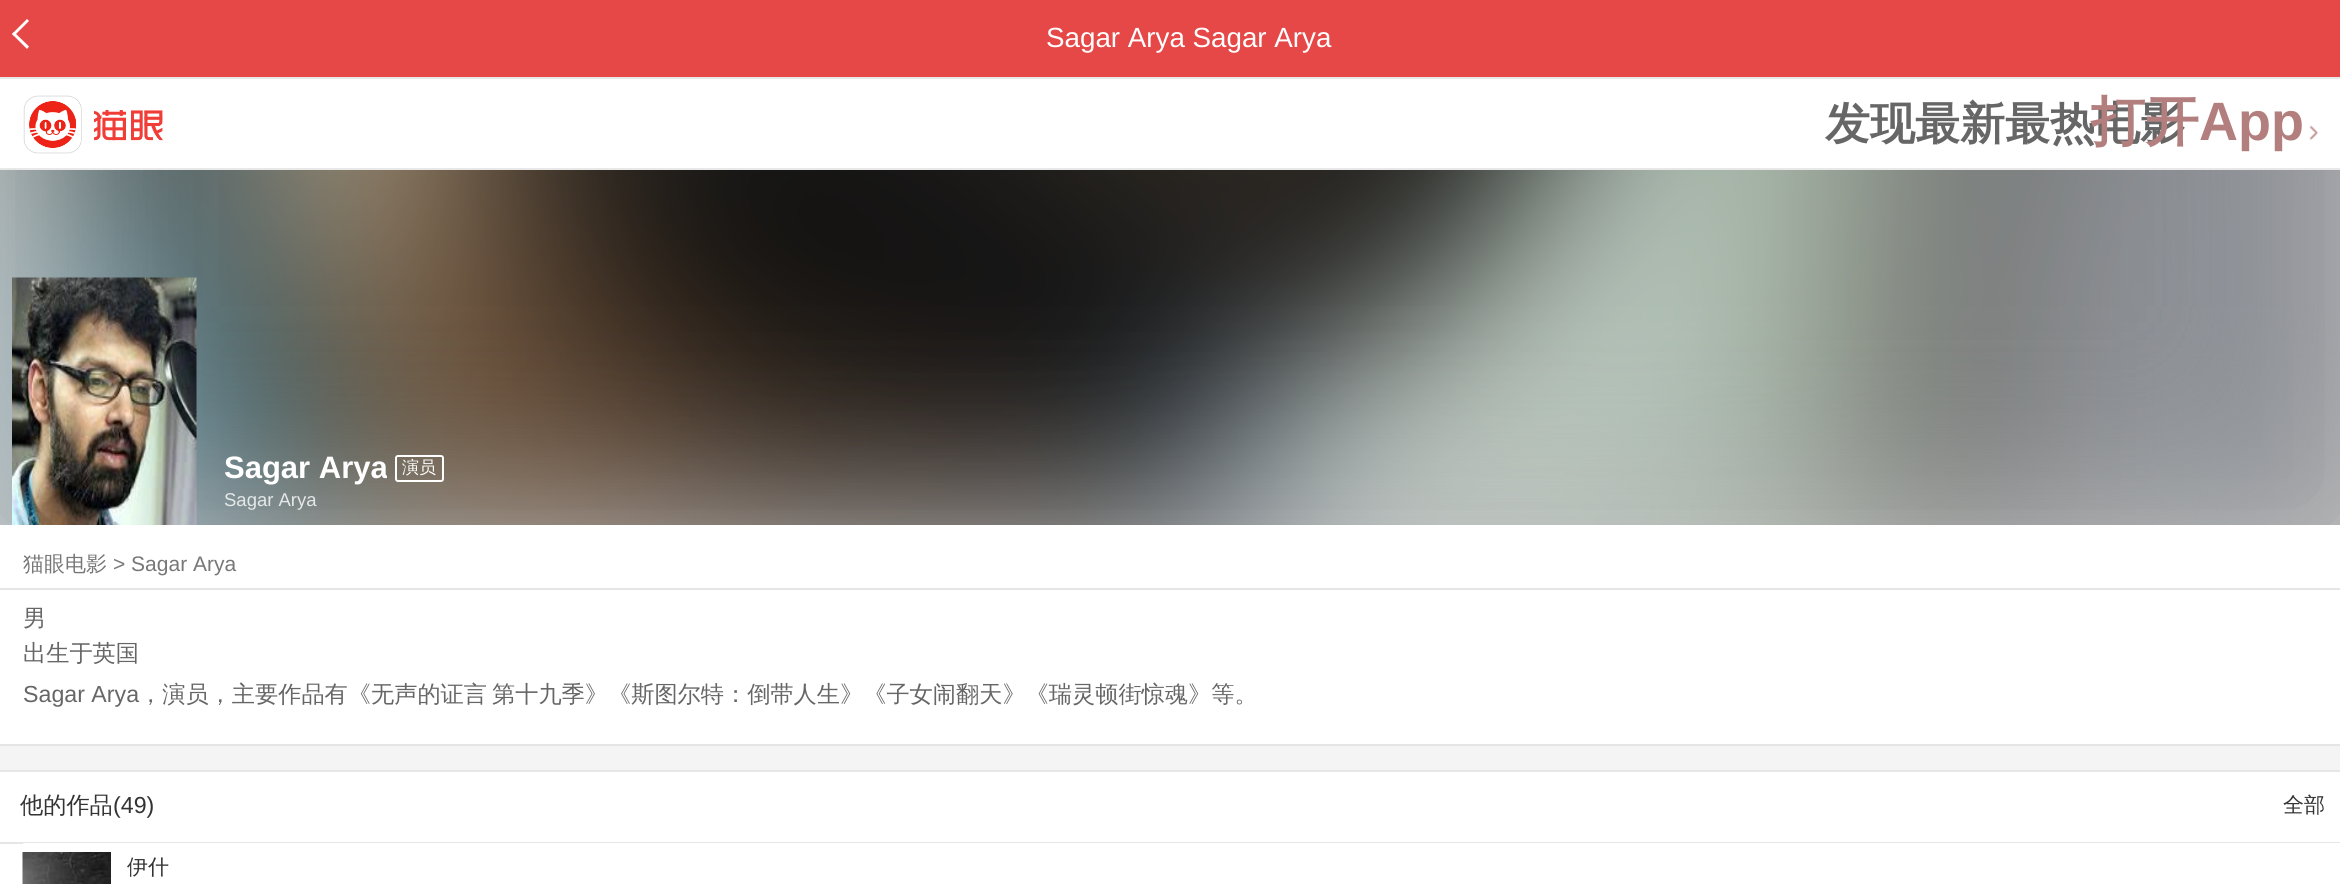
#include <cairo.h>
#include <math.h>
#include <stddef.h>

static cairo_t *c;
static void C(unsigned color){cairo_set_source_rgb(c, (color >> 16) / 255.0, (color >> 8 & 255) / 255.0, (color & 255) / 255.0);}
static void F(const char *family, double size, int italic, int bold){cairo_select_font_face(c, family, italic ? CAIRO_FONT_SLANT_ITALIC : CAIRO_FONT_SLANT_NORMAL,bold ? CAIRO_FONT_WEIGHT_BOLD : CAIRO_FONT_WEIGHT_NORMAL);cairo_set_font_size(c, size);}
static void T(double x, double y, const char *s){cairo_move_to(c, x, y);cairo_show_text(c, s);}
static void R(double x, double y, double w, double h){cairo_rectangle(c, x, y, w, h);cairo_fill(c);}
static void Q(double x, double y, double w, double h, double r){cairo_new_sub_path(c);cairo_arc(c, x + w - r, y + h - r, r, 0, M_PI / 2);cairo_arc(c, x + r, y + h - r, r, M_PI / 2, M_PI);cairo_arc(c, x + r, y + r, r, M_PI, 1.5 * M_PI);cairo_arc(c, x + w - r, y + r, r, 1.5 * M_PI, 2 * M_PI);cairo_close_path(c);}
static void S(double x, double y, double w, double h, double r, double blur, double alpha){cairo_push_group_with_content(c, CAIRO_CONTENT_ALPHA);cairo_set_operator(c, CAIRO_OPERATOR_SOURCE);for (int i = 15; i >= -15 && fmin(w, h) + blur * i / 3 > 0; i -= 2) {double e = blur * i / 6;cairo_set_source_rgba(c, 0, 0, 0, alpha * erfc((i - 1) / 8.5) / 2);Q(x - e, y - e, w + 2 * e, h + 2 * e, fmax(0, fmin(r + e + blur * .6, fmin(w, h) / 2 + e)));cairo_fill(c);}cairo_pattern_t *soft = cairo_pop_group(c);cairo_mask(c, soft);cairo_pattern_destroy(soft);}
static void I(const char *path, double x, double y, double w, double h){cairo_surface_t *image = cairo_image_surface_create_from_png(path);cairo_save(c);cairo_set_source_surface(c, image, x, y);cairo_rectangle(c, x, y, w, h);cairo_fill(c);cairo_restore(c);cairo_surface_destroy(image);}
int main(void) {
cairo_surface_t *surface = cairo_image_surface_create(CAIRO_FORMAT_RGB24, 2340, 884);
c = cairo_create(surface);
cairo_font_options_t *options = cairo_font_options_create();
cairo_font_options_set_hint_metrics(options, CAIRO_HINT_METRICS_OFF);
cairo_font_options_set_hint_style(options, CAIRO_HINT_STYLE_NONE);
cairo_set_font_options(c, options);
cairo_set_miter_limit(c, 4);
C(0xf4f4f4);
cairo_paint(c);
C(0xe54847);
R(0,0,2340,77);
C(0xffffff);
R(0,525,2340,219);
C(0xcccccc);
R(0,170,2340,355);
C(0xe5e5e5);
R(0,744,2340,2);
C(0xffffff);
R(0,772,2340,112);
C(0xe6e6e6);
R(0,770,2340,2);
cairo_save(c);
cairo_rectangle(c,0,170,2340,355);
cairo_clip(c);
C(0xadadad);
S(0,-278,2340,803,0,92.5,1);
cairo_restore(c);
C(0xffffff);
cairo_new_path(c);
cairo_move_to(c,14,32);
cairo_line_to(c,29,46.5);
cairo_line_to(c,27,49);
cairo_line_to(c,12,34);
cairo_close_path(c);
cairo_fill(c);
cairo_new_path(c);
cairo_move_to(c,27,19);
cairo_line_to(c,29,21);
cairo_line_to(c,14,36);
cairo_line_to(c,12,34);
cairo_close_path(c);
cairo_fill(c);
F("Liberation Sans",27.75,0,0);
T(1046,47,"Sagar Arya Sagar Arya");
R(0,79,2340,89);
C(0xe8e8e8);
R(0,77,2340,2);
R(0,168,2340,2);
I("1.png",23,95,140,59);
F("WenQuanYi Zen Hei",45,0,1);
C(0x666666);
T(1825,139,"发现最新最热电影");
F("WenQuanYi Zen Hei",54,0,1);
C(0xb37e7e);
T(2091,140,"打开");
F("Liberation Sans",54,0,1);
T(2199,140,"App");
I("2.png",2309,125,9,15);
I("3.png",0,170,2340,355);
I("4.png",12,277,185,248);
cairo_save(c);
cairo_rectangle(c,224,446,163,46);
cairo_clip(c);
F("Liberation Sans",31,0,1);
C(0xffffff);
T(224,478,"Sagar Arya");
cairo_restore(c);
Q(396,456,47,25,2);
C(0xffffff);
cairo_stroke(c);
F("WenQuanYi Zen Hei Medium",17,0,0);
T(402,473,"演员");
F("Liberation Sans",18.5,0,0);
C(0xe5e8e8);
T(224,506,"Sagar Arya");
F("WenQuanYi Zen Hei Medium",21,0,0);
C(0x777777);
T(23,571,"猫眼电影");
F("Liberation Sans",21,0,0);
T(113,571,"> Sagar Arya");
C(0xe6e6e6);
R(0,588,2340,2);
F("WenQuanYi Zen Hei Medium",23.2,0,0);
C(0x666666);
T(23,626,"男");
T(23,661,"出生于英国");
F("Liberation Sans",23.2,0,0);
T(23,702,"Sagar Arya");
F("WenQuanYi Zen Hei Medium",23.2,0,0);
T(139,702,"，演员，主要作品有《无声的证言");
T(492,702,"第十九季》《斯图尔特：倒带人生》《子女闹翻天》《瑞灵顿街惊魂》等。");
C(0xe6e6e6);
R(0,842,2340,2);
C(0x333333);
T(20,813,"他的作品");
F("Liberation Sans",23.2,0,0);
T(113,813,"(49)");
F("WenQuanYi Zen Hei Medium",21,0,0);
T(2283,812,"全部");
C(0xffffff);
R(23,843,2317,1);
I("5.png",22,852,89,32);
C(0x333333);
T(127,874,"伊什");
cairo_surface_write_to_png(surface, "o.png");
cairo_font_options_destroy(options);
cairo_destroy(c);
cairo_surface_destroy(surface);
return 0;
}
